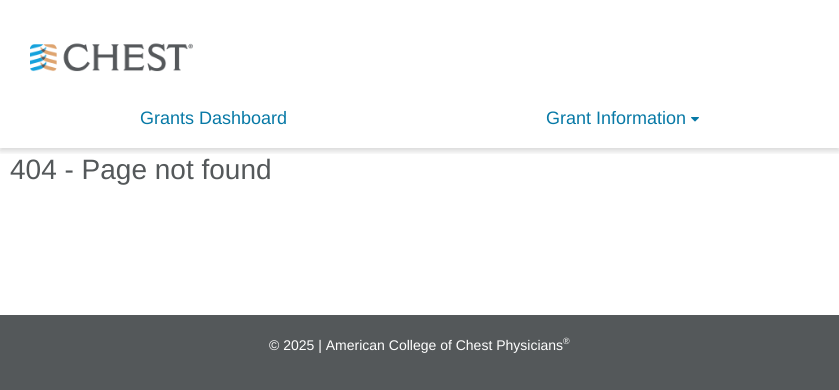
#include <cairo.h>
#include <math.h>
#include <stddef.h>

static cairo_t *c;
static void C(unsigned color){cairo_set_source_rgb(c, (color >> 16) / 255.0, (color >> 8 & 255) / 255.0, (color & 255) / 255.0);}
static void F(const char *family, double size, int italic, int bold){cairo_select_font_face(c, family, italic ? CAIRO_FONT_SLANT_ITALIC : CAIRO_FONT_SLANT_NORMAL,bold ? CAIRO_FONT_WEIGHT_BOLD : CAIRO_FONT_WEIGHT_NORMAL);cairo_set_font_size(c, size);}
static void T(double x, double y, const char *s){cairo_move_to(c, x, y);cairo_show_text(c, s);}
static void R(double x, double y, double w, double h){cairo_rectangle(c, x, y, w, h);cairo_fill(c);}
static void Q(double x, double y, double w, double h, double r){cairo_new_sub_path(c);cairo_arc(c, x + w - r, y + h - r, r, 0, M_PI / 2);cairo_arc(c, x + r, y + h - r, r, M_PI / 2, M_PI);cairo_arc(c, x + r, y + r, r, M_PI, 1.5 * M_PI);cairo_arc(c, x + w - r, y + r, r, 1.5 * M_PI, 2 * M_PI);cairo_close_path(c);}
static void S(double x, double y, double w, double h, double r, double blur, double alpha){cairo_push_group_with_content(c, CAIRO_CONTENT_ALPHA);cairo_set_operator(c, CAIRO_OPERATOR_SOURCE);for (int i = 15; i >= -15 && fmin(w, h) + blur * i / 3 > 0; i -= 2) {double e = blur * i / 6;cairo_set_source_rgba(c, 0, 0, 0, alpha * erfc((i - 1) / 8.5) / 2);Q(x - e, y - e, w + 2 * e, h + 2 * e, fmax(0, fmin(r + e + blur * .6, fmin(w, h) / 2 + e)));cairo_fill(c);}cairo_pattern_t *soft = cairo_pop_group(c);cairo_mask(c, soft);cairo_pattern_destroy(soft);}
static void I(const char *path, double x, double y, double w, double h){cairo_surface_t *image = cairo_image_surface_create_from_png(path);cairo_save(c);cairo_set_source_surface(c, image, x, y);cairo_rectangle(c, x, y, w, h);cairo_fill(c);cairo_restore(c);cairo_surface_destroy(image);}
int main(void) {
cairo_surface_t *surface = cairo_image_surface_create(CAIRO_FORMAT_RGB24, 839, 390);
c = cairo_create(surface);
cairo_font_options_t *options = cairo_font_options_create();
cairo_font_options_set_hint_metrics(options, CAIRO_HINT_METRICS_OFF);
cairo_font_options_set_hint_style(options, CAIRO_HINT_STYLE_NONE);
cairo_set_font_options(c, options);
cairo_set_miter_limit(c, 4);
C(0xffffff);
cairo_paint(c);
cairo_save(c);
cairo_rectangle(c,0,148,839,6);
cairo_clip(c);
C(0x000000);
S(0,3,839,148,0,3,.16);
cairo_restore(c);
I("1.png",30,43,163,29);
F("Liberation Sans",18,0,0);
C(0x0779a6);
T(140,124,"Grants Dashboard");
T(546,124,"Grant Information");
I("2.png",691,117,8,5);
F("Liberation Sans",28,0,0);
C(0x54585a);
T(10,179,"404 - Page not found");
R(0,315,839,75);
F("Liberation Sans",14,0,0);
C(0xffffff);
T(269,350,"© 2025 | American College of Chest Physicians");
F("Liberation Sans",9,0,0);
T(563,344,"®");
cairo_surface_write_to_png(surface, "o.png");
cairo_font_options_destroy(options);
cairo_destroy(c);
cairo_surface_destroy(surface);
return 0;
}
